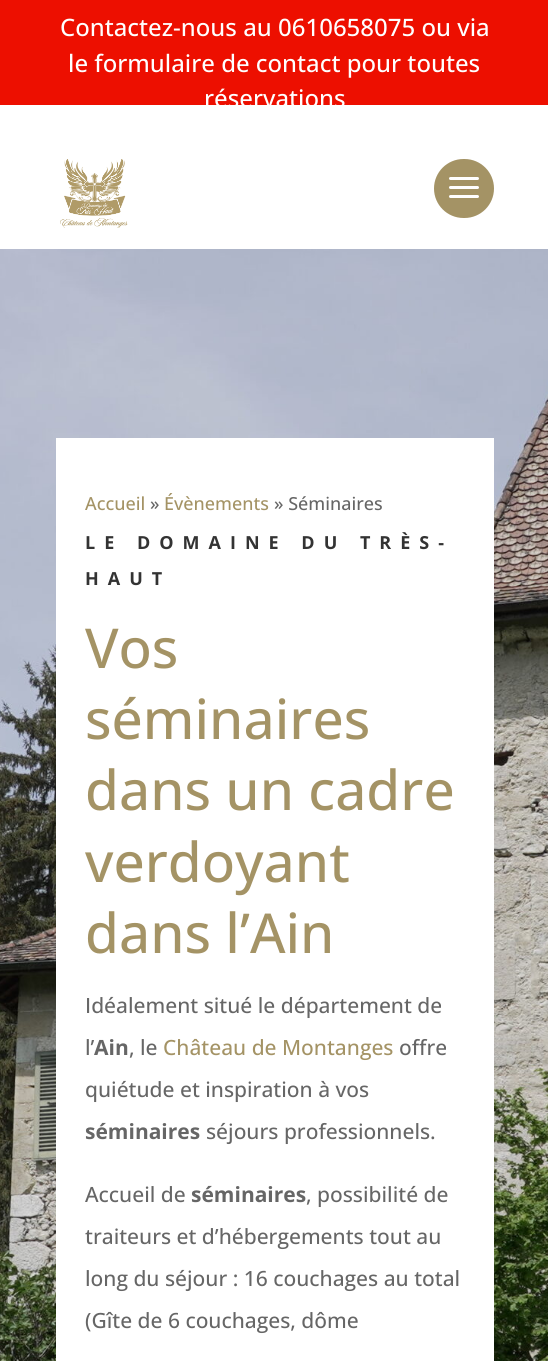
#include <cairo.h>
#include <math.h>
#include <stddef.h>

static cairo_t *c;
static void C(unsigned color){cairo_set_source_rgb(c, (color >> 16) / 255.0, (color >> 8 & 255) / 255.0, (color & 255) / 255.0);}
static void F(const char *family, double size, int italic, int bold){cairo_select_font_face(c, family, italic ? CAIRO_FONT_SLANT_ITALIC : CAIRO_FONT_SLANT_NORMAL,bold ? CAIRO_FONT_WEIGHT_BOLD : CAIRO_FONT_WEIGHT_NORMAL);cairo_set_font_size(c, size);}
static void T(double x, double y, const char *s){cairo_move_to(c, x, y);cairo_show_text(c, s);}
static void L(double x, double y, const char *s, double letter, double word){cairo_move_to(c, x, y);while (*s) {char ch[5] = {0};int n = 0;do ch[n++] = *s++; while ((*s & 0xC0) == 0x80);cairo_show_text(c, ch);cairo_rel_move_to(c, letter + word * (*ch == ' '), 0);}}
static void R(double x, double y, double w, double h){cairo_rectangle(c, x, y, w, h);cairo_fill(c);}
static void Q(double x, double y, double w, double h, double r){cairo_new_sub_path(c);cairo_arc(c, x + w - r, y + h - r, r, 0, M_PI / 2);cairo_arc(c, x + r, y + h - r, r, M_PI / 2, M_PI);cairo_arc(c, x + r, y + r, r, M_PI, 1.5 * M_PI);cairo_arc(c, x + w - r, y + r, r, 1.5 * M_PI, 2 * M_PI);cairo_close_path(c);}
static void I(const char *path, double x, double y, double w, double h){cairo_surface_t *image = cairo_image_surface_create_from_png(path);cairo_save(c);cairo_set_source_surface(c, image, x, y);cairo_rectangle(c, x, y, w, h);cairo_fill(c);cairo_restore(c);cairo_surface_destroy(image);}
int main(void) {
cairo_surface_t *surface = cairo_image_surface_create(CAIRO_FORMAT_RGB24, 548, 1361);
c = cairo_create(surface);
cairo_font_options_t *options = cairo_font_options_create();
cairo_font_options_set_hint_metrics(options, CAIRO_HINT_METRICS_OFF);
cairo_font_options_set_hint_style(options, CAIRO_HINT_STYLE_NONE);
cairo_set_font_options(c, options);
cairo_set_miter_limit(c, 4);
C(0xffffff);
cairo_paint(c);
C(0xed0f00);
R(0,0,548,105);
F("Open Sans Medium",24,0,0);
C(0xffffff);
T(60,36,"Contactez-nous au 0610658075 ou via");
T(68,72,"le formulaire de contact pour toutes");
cairo_save(c);
cairo_rectangle(c,0,0,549,105);
cairo_clip(c);
T(204,107,"réservations");
cairo_restore(c);
I("1.png",60,159,68,69);
C(0xa49365);
Q(434,159,60,59,29.5);
cairo_fill(c);
C(0xffffff);
Q(449,177,30,3,1.5);
cairo_fill(c);
Q(449,186,30,3,1.5);
cairo_fill(c);
Q(449,195,30,3,1.5);
cairo_fill(c);
I("2.png",0,249,548,1112);
R(56,438,438,923);
F("Open Sans Medium",18,0,0);
C(0xa49365);
T(85,510,"Accueil");
C(0x666666);
T(150,510,"»");
C(0xa49365);
T(164,510,"Évènements");
C(0x666666);
T(274,510,"» Séminaires");
F("Open Sans",18,0,1);
C(0x333333);
L(85,549,"LE DOMAINE DU TRÈS-",9,0);
L(85,585,"HAUT",9,0);
F("Open Sans Medium",55,0,0);
C(0xa49365);
T(85,668,"Vos");
T(85,739,"séminaires");
T(85,810,"dans un cadre");
T(85,882,"verdoyant");
T(85,953,"dans l’Ain");
F("Open Sans Medium",21,0,0);
C(0x666666);
T(85,1013,"Idéalement situé le département de");
T(85,1055,"l’");
F("Open Sans",21,0,1);
T(94,1055,"Ain");
F("Open Sans Medium",21,0,0);
T(129,1055,", le");
C(0xa49365);
T(163,1055,"Château de Montanges");
C(0x666666);
T(399,1055,"offre");
T(85,1097,"quiétude et inspiration à vos");
F("Open Sans",21,0,1);
T(85,1139,"séminaires");
F("Open Sans Medium",21,0,0);
T(206,1139,"séjours professionnels.");
T(85,1202,"Accueil de");
F("Open Sans",21,0,1);
T(191,1202,"séminaires");
F("Open Sans Medium",21,0,0);
T(306,1202,", possibilité de");
T(85,1244,"traiteurs et d’hébergements tout au");
T(85,1286,"long du séjour : 16 couchages au total");
T(85,1328,"(Gîte de 6 couchages, dôme");
cairo_surface_write_to_png(surface, "o.png");
cairo_font_options_destroy(options);
cairo_destroy(c);
cairo_surface_destroy(surface);
return 0;
}
